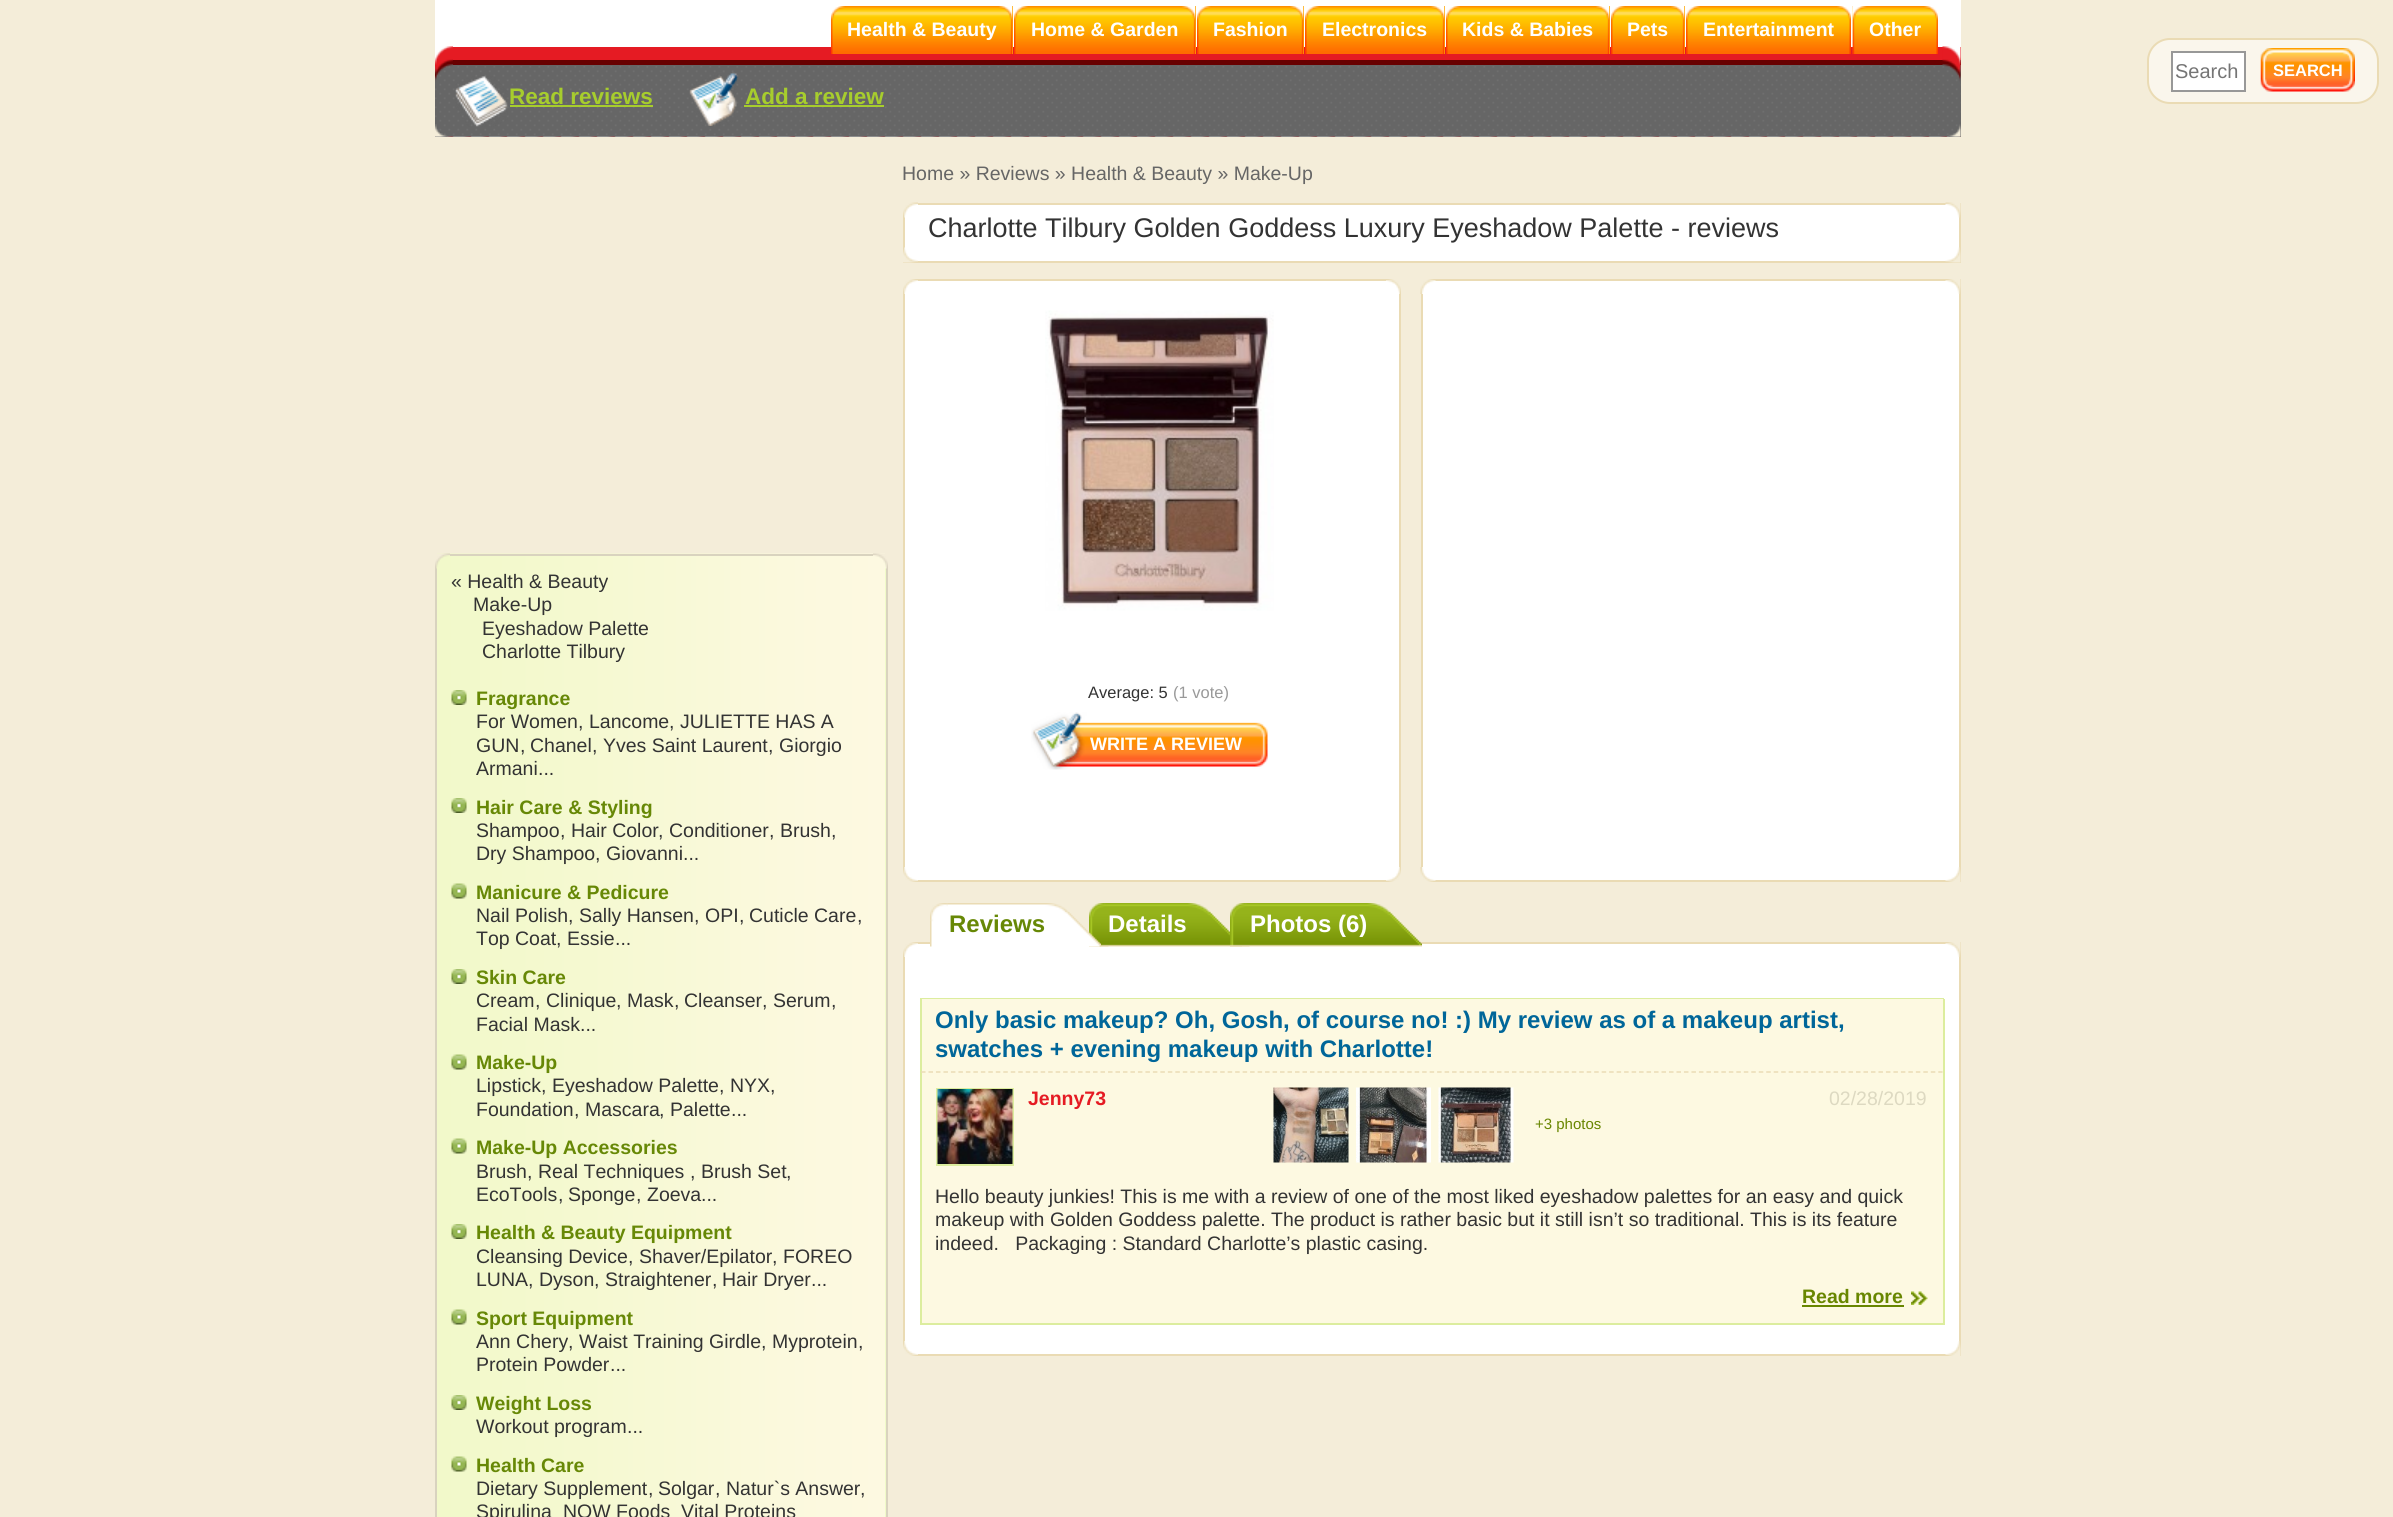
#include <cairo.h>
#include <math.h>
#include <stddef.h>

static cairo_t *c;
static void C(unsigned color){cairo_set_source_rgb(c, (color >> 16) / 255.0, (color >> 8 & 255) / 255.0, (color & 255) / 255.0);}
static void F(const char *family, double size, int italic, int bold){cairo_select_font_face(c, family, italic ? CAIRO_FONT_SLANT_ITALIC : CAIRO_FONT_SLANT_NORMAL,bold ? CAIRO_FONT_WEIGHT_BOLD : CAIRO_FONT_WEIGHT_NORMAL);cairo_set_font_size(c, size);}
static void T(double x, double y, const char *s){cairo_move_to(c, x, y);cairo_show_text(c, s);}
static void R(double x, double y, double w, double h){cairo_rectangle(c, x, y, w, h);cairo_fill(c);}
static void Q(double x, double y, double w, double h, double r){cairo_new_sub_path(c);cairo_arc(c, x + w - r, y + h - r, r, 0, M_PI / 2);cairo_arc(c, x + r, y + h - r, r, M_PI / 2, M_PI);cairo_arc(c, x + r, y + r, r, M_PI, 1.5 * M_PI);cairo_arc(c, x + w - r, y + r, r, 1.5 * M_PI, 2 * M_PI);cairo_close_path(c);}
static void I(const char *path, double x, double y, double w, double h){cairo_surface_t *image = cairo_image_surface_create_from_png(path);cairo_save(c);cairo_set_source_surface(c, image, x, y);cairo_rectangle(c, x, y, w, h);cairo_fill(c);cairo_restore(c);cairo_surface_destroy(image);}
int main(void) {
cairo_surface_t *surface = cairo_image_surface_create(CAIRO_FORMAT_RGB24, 2393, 1517);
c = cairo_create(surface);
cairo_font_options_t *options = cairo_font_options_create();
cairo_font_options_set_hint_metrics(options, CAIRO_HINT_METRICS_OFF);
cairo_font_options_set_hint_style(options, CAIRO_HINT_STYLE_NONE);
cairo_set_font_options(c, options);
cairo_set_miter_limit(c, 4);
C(0xf4edd9);
cairo_paint(c);
C(0xe51b23);
R(453,47,1508,13);
C(0xffffff);
R(435,0,1526,47);
C(0xffa500);
R(1012,6,1,48);
I("1.png",863,6,150,48);
I("2.png",831,6,32,48);
F("Liberation Sans",19.5,0,1);
C(0xffffff);
T(847,36,"Health & Beauty");
C(0xffa500);
R(1195,6,1,48);
I("3.png",1046,6,150,48);
I("2.png",1014,6,32,48);
C(0xffffff);
T(1031,36,"Home & Garden");
C(0xffa500);
R(1303,6,1,48);
I("4.png",1211,6,93,48);
I("5.png",1197,6,14,48);
C(0xffffff);
T(1213,36,"Fashion");
C(0xffa500);
R(1444,6,1,48);
I("6.png",1319,6,126,48);
I("7.png",1305,6,14,48);
C(0xffffff);
T(1322,36,"Electronics");
C(0xffa500);
R(1609,6,1,48);
I("1.png",1460,6,150,48);
I("8.png",1446,6,14,48);
C(0xffffff);
T(1462,36,"Kids & Babies");
C(0xffa500);
R(1684,6,1,48);
I("9.png",1625,6,60,48);
I("10.png",1611,6,14,48);
C(0xffffff);
T(1627,36,"Pets");
I("11.png",1701,6,150,48);
I("12.png",1686,6,15,48);
T(1703,36,"Entertainment");
I("13.png",1852,6,86,48);
I("14.png",1852,6,15,48);
T(1869,36,"Other");
C(0xfaf6ec);
Q(2148,39,230,64,22);
cairo_fill_preserve(c);
C(0xeadbb4);
cairo_stroke(c);
C(0xffffff);
cairo_rectangle(c,2172,52,73,39);
cairo_fill_preserve(c);
C(0x989898);
cairo_stroke(c);
F("Liberation Sans",20,0,0);
C(0x757575);
T(2175,78,"Search");
I("15.png",2260,48,95,44);
F("Liberation Sans",16.5,0,1);
C(0xffffff);
T(2273,76,"SEARCH");
C(0x666666);
R(435,65,1526,72);
I("16.png",435,66,1526,71);
C(0x680000);
R(453,60,1508,5);
I("17.png",435,46,18,91);
I("18.png",455,76,53,51);
F("Liberation Sans",22.5,0,1);
C(0xa7cd2d);
T(509,104,"Read reviews");
R(510,105,143,2);
I("19.png",689,72,49,54);
T(745,104,"Add a review");
R(744,105,140,2);
I("20.png",1942,46,19,91);
C(0xf0fbc9);
R(885,562,1,955);
I("21.png",437,553,448,964);
cairo_rectangle(c,436,555,451,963);
C(0xd9d3bf);
cairo_stroke(c);
I("22.png",435,553,15,16);
I("23.png",873,553,15,16);
F("Liberation Sans",19.5,0,0);
C(0x333333);
T(451,588,"« Health & Beauty");
T(473,611,"Make-Up");
T(482,635,"Eyeshadow Palette");
T(482,658,"Charlotte Tilbury");
I("24.png",451,690,16,15);
F("Liberation Sans",19.5,0,1);
C(0x678806);
T(476,705,"Fragrance");
F("Liberation Sans",19.5,0,0);
C(0x333333);
T(476,728,"For Women");
T(578,728,",");
T(589,728,"Lancome");
T(669,728,",");
T(680,728,"JULIETTE HAS A");
T(476,752,"GUN");
T(520,752,",");
T(530,752,"Chanel");
T(592,752,",");
T(603,752,"Yves Saint Laurent");
T(768,752,",");
T(779,752,"Giorgio");
T(476,775,"Armani");
T(538,775,"...");
I("24.png",451,798,16,15);
F("Liberation Sans",19.5,0,1);
C(0x678806);
T(476,814,"Hair Care & Styling");
F("Liberation Sans",19.5,0,0);
C(0x333333);
T(476,837,"Shampoo");
T(560,837,",");
T(571,837,"Hair Color");
T(658,837,",");
T(669,837,"Conditioner");
T(769,837,",");
T(780,837,"Brush");
T(831,837,",");
T(476,860,"Dry Shampoo");
T(595,860,",");
T(606,860,"Giovanni");
T(683,860,"...");
I("25.png",451,883,16,16);
F("Liberation Sans",19.5,0,1);
C(0x678806);
T(476,899,"Manicure & Pedicure");
F("Liberation Sans",19.5,0,0);
C(0x333333);
T(476,922,"Nail Polish");
T(568,922,",");
T(579,922,"Sally Hansen");
T(694,922,",");
T(705,922,"OPI");
T(739,922,",");
T(749,922,"Cuticle Care");
T(857,922,",");
T(476,945,"Top Coat");
T(556,945,",");
T(567,945,"Essie");
T(615,945,"...");
I("24.png",451,969,16,15);
F("Liberation Sans",19.5,0,1);
C(0x678806);
T(476,984,"Skin Care");
F("Liberation Sans",19.5,0,0);
C(0x333333);
T(476,1007,"Cream");
T(535,1007,",");
T(546,1007,"Clinique");
T(616,1007,",");
T(627,1007,"Mask");
T(674,1007,",");
T(684,1007,"Cleanser");
T(762,1007,",");
T(773,1007,"Serum");
T(831,1007,",");
T(476,1031,"Facial Mask");
T(580,1031,"...");
I("25.png",451,1054,16,16);
F("Liberation Sans",19.5,0,1);
C(0x678806);
T(476,1069,"Make-Up");
F("Liberation Sans",19.5,0,0);
C(0x333333);
T(476,1092,"Lipstick");
T(541,1092,",");
T(552,1092,"Eyeshadow Palette");
T(719,1092,",");
T(730,1092,"NYX");
T(770,1092,",");
T(476,1116,"Foundation");
T(574,1116,",");
T(585,1116,"Mascara");
T(659,1116,",");
T(670,1116,"Palette");
T(731,1116,"...");
I("25.png",451,1138,16,16);
F("Liberation Sans",19.5,0,1);
C(0x678806);
T(476,1154,"Make-Up Accessories");
F("Liberation Sans",19.5,0,0);
C(0x333333);
T(476,1178,"Brush");
T(527,1178,",");
T(538,1178,"Real Techniques");
T(690,1178,",");
T(701,1178,"Brush Set");
T(786,1178,",");
T(476,1201,"EcoTools");
T(558,1201,",");
T(568,1201,"Sponge");
T(636,1201,",");
T(647,1201,"Zoeva");
T(701,1201,"...");
I("24.png",451,1224,16,15);
F("Liberation Sans",19.5,0,1);
C(0x678806);
T(476,1239,"Health & Beauty Equipment");
F("Liberation Sans",19.5,0,0);
C(0x333333);
T(476,1263,"Cleansing Device");
T(628,1263,",");
T(639,1263,"Shaver/Epilator");
T(772,1263,",");
T(783,1263,"FOREO");
T(476,1286,"LUNA");
T(528,1286,",");
T(539,1286,"Dyson");
T(594,1286,",");
T(605,1286,"Straightener");
T(712,1286,",");
T(722,1286,"Hair Dryer");
T(811,1286,"...");
I("25.png",451,1309,16,16);
F("Liberation Sans",19.5,0,1);
C(0x678806);
T(476,1325,"Sport Equipment");
F("Liberation Sans",19.5,0,0);
C(0x333333);
T(476,1348,"Ann Chery");
T(568,1348,",");
T(579,1348,"Waist Training Girdle");
T(761,1348,",");
T(772,1348,"Myprotein");
T(858,1348,",");
T(476,1371,"Protein Powder");
T(610,1371,"...");
I("24.png",451,1395,16,15);
F("Liberation Sans",19.5,0,1);
C(0x678806);
T(476,1410,"Weight Loss");
F("Liberation Sans",19.5,0,0);
C(0x333333);
T(476,1433,"Workout program");
T(627,1433,"...");
I("25.png",451,1456,16,16);
F("Liberation Sans",19.5,0,1);
C(0x678806);
T(476,1472,"Health Care");
F("Liberation Sans",19.5,0,0);
C(0x333333);
T(476,1495,"Dietary Supplement");
T(648,1495,",");
T(658,1495,"Solgar");
T(715,1495,",");
T(726,1495,"Natur`s Answer");
T(860,1495,",");
T(476,1518,"Spirulina");
T(563,1518,"NOW Foods");
T(681,1518,"Vital Proteins");
C(0x666666);
T(902,180,"Home » Reviews » Health & Beauty » Make-Up");
C(0xffffff);
cairo_rectangle(c,904,204,1056,58);
cairo_fill_preserve(c);
C(0xeadbb4);
cairo_stroke(c);
I("26.png",903,202,15,16);
I("27.png",1945,202,16,16);
F("Liberation Sans",27,0,0);
C(0x333333);
T(928,237,"Charlotte Tilbury Golden Goddess Luxury Eyeshadow Palette - reviews");
I("28.png",903,247,15,16);
I("29.png",1945,247,16,16);
C(0xffffff);
cairo_rectangle(c,904,280,496,601);
cairo_fill_preserve(c);
C(0xeadbb4);
cairo_stroke(c);
I("30.png",903,279,15,15);
I("31.png",1386,279,15,15);
I("32.png",1045,310,229,301);
F("Liberation Sans",16.5,0,0);
C(0x333333);
T(1088,698,"Average: 5");
C(0x999999);
T(1173,698,"(1 vote)");
I("33.png",1031,712,237,58);
F("Liberation Sans",18,0,1);
C(0xffffff);
T(1090,750,"WRITE A REVIEW");
I("34.png",903,867,15,15);
I("35.png",1386,867,15,15);
cairo_rectangle(c,1422,280,538,601);
cairo_fill_preserve(c);
C(0xeadbb4);
cairo_stroke(c);
I("36.png",1420,279,16,15);
I("37.png",1945,279,16,15);
I("38.png",1420,867,16,15);
I("39.png",1945,867,16,15);
C(0xffffff);
cairo_rectangle(c,904,943,1056,412);
cairo_fill_preserve(c);
C(0xeadbb4);
cairo_stroke(c);
I("30.png",903,942,15,15);
I("42.png",1089,903,153,44);
I("43.png",1089,903,20,44);
I("40.png",930,903,171,44);
I("41.png",930,903,18,44);
F("Liberation Sans",24,0,1);
C(0x678806);
T(949,932,"Reviews");
C(0xffffff);
T(1108,932,"Details");
I("44.png",1230,903,192,44);
I("45.png",1230,903,20,44);
T(1250,932,"Photos (6)");
C(0xdced9e);
R(920,998,1024,1);
C(0xfdf9e1);
R(922,999,1021,324);
C(0xdced9e);
R(1943,999,2,326);
R(920,1323,1024,2);
R(920,999,2,326);
cairo_new_path(c);
cairo_move_to(c,921,1072);
cairo_line_to(c,1942.5,1072);
C(0xeadbb5);
cairo_set_line_width(c,1.5);
cairo_set_dash(c,(double[]){4.5,2.98},2,0);
cairo_stroke(c);
C(0x006699);
T(935,1028,"Only basic makeup? Oh, Gosh, of course no! :) My review as of a makeup artist,");
T(935,1057,"swatches + evening makeup with Charlotte!");
cairo_rectangle(c,937,1089,76,76);
C(0xdced9e);
cairo_set_line_width(c,2);
cairo_set_dash(c,NULL,0,0);
cairo_stroke(c);
I("46.png",937,1089,76,75);
F("Liberation Sans",19.5,0,1);
C(0xe51b23);
T(1028,1105,"Jenny73");
F("Liberation Sans",19.5,0,0);
C(0xddd9c1);
T(1829,1105,"02/28/2019");
I("47.png",1273,1087,76,76);
I("48.png",1356,1087,75,76);
I("49.png",1438,1087,76,76);
F("Liberation Sans",15,0,0);
C(0x688600);
T(1535,1129,"+3 photos");
F("Liberation Sans",19.5,0,0);
C(0x333333);
T(935,1203,"Hello beauty junkies! This is me with a review of one of the most liked eyeshadow palettes for an easy and quick");
T(935,1226,"makeup with Golden Goddess palette. The product is rather basic but it still isn’t so traditional. This is its feature");
T(935,1250,"indeed.   Packaging : Standard Charlotte’s plastic casing.");
I("50.png",1911,1291,17,14);
F("Liberation Sans",19.5,0,1);
C(0x688600);
T(1802,1303,"Read more");
R(1802,1305,102,2);
I("37.png",1945,942,16,15);
I("34.png",903,1341,15,15);
I("39.png",1945,1341,16,15);
cairo_surface_write_to_png(surface, "o.png");
cairo_font_options_destroy(options);
cairo_destroy(c);
cairo_surface_destroy(surface);
return 0;
}
